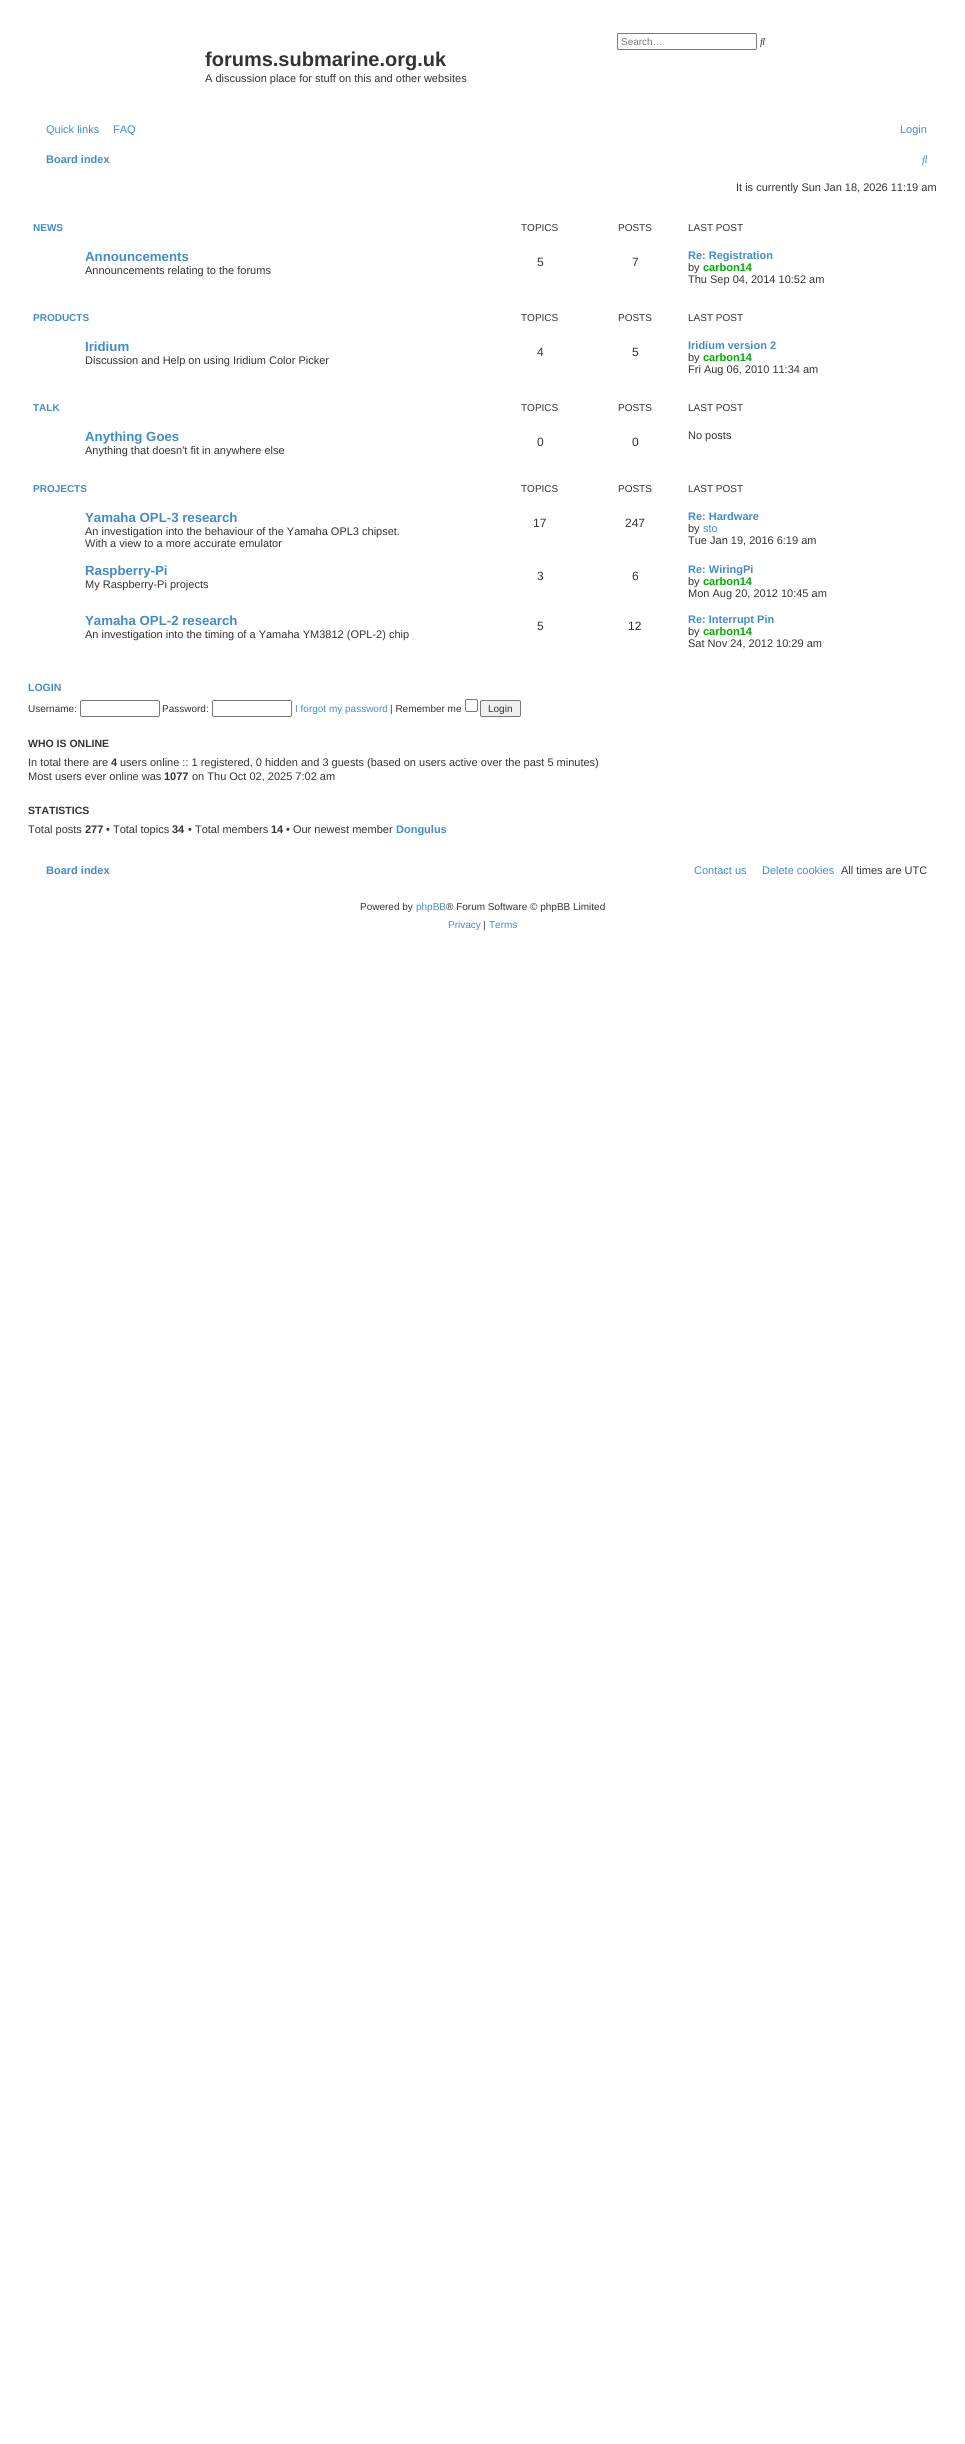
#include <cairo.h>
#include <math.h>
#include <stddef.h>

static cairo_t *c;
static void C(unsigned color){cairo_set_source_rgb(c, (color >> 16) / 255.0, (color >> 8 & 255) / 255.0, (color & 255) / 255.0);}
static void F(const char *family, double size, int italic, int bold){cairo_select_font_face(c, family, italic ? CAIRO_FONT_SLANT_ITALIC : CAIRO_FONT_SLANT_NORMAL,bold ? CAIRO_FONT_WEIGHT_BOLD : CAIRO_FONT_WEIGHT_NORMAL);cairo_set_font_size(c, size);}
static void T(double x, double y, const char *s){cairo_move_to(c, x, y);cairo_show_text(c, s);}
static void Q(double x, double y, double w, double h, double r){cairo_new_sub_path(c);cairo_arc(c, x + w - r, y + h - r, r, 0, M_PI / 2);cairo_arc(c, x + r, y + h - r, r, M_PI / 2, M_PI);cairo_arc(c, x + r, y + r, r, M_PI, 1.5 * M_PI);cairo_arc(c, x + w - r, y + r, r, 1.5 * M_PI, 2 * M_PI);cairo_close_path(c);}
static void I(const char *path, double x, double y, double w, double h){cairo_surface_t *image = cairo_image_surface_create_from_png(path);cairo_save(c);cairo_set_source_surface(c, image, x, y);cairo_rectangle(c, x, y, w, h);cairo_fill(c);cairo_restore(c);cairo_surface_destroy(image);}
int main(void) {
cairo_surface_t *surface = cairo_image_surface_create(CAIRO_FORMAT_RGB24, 965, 2444);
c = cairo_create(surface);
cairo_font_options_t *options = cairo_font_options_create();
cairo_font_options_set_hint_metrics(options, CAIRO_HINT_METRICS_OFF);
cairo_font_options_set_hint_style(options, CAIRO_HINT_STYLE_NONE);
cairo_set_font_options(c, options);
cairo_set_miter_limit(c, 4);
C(0xffffff);
cairo_paint(c);
Q(617.5,33.5,139,16,1.5);
C(0x767676);
cairo_set_line_width(c,1);
cairo_stroke(c);
F("Liberation Sans",10,0,0);
C(0x757575);
T(621,45,"Search…");
I("1.png",760,38,5,10);
F("Liberation Sans",20,0,1);
C(0x333333);
T(205,66,"forums.submarine.org.uk");
F("Liberation Sans",11,0,0);
T(205,82,"A discussion place for stuff on this and other websites");
C(0x428bca);
T(46,133,"Quick links");
T(113,133,"FAQ");
T(900,133,"Login");
F("Liberation Sans",11,0,1);
T(46,163,"Board index");
I("2.png",922,155,6,11);
F("Liberation Sans",11,0,0);
C(0x333333);
T(736,191,"It is currently Sun Jan 18, 2026 11:19 am");
F("Liberation Sans",10,0,1);
C(0x428bca);
T(33,231,"NEWS");
F("Liberation Sans",10,0,0);
C(0x333333);
T(521,231,"TOPICS");
T(618,231,"POSTS");
T(688,231,"LAST POST");
F("Liberation Sans",13.25,0,1);
C(0x428bca);
T(85,261,"Announcements");
F("Liberation Sans",11,0,0);
C(0x333333);
T(85,274,"Announcements relating to the forums");
F("Liberation Sans",12,0,0);
T(537,266,"5");
T(632,266,"7");
F("Liberation Sans",11,0,1);
C(0x428bca);
T(688,259,"Re: Registration");
F("Liberation Sans",11,0,0);
C(0x333333);
T(688,271,"by");
F("Liberation Sans",11,0,1);
C(0x00aa00);
T(703,271,"carbon14");
F("Liberation Sans",11,0,0);
C(0x333333);
T(688,283,"Thu Sep 04, 2014 10:52 am");
F("Liberation Sans",10,0,1);
C(0x428bca);
T(33,321,"PRODUCTS");
F("Liberation Sans",10,0,0);
C(0x333333);
T(521,321,"TOPICS");
T(618,321,"POSTS");
T(688,321,"LAST POST");
F("Liberation Sans",13.25,0,1);
C(0x428bca);
T(85,351,"Iridium");
F("Liberation Sans",11,0,0);
C(0x333333);
T(85,364,"Discussion and Help on using Iridium Color Picker");
F("Liberation Sans",12,0,0);
T(537,356,"4");
T(632,356,"5");
F("Liberation Sans",11,0,1);
C(0x428bca);
T(688,349,"Iridium version 2");
F("Liberation Sans",11,0,0);
C(0x333333);
T(688,361,"by");
F("Liberation Sans",11,0,1);
C(0x00aa00);
T(703,361,"carbon14");
F("Liberation Sans",11,0,0);
C(0x333333);
T(688,373,"Fri Aug 06, 2010 11:34 am");
F("Liberation Sans",10,0,1);
C(0x428bca);
T(33,411,"TALK");
F("Liberation Sans",10,0,0);
C(0x333333);
T(521,411,"TOPICS");
T(618,411,"POSTS");
T(688,411,"LAST POST");
F("Liberation Sans",13.25,0,1);
C(0x428bca);
T(85,441,"Anything Goes");
F("Liberation Sans",11,0,0);
C(0x333333);
T(85,454,"Anything that doesn't fit in anywhere else");
F("Liberation Sans",12,0,0);
T(537,446,"0");
T(632,446,"0");
F("Liberation Sans",11,0,0);
T(688,439,"No posts");
F("Liberation Sans",10,0,1);
C(0x428bca);
T(33,492,"PROJECTS");
F("Liberation Sans",10,0,0);
C(0x333333);
T(521,492,"TOPICS");
T(618,492,"POSTS");
T(688,492,"LAST POST");
F("Liberation Sans",13.25,0,1);
C(0x428bca);
T(85,522,"Yamaha OPL-3 research");
F("Liberation Sans",11,0,0);
C(0x333333);
T(85,535,"An investigation into the behaviour of the Yamaha OPL3 chipset.");
T(85,547,"With a view to a more accurate emulator");
F("Liberation Sans",12,0,0);
T(533,527,"17");
T(625,527,"247");
F("Liberation Sans",11,0,1);
C(0x428bca);
T(688,520,"Re: Hardware");
F("Liberation Sans",11,0,0);
C(0x333333);
T(688,532,"by");
C(0x428bca);
T(703,532,"sto");
C(0x333333);
T(688,544,"Tue Jan 19, 2016 6:19 am");
F("Liberation Sans",13.25,0,1);
C(0x428bca);
T(85,575,"Raspberry-Pi");
F("Liberation Sans",11,0,0);
C(0x333333);
T(85,588,"My Raspberry-Pi projects");
F("Liberation Sans",12,0,0);
T(537,580,"3");
T(632,580,"6");
F("Liberation Sans",11,0,1);
C(0x428bca);
T(688,573,"Re: WiringPi");
F("Liberation Sans",11,0,0);
C(0x333333);
T(688,585,"by");
F("Liberation Sans",11,0,1);
C(0x00aa00);
T(703,585,"carbon14");
F("Liberation Sans",11,0,0);
C(0x333333);
T(688,597,"Mon Aug 20, 2012 10:45 am");
F("Liberation Sans",13.25,0,1);
C(0x428bca);
T(85,625,"Yamaha OPL-2 research");
F("Liberation Sans",11,0,0);
C(0x333333);
T(85,638,"An investigation into the timing of a Yamaha YM3812 (OPL-2) chip");
F("Liberation Sans",12,0,0);
T(537,630,"5");
T(628,630,"12");
F("Liberation Sans",11,0,1);
C(0x428bca);
T(688,623,"Re: Interrupt Pin");
F("Liberation Sans",11,0,0);
C(0x333333);
T(688,635,"by");
F("Liberation Sans",11,0,1);
C(0x00aa00);
T(703,635,"carbon14");
F("Liberation Sans",11,0,0);
C(0x333333);
T(688,647,"Sat Nov 24, 2012 10:29 am");
F("Liberation Sans",10.5,0,1);
C(0x428bca);
T(28,691,"LOGIN");
F("Liberation Sans",10,0,0);
C(0x333333);
T(28,712,"Username:");
Q(80.5,700.5,79,16,1.5);
C(0x767676);
cairo_stroke(c);
C(0x333333);
T(162,712,"Password:");
Q(212.5,700.5,79,16,1.5);
C(0x767676);
cairo_stroke(c);
C(0x428bca);
T(295,712,"I forgot my password");
C(0x333333);
T(390,712,"| Remember me");
Q(465.5,699.5,12,12,1.5);
C(0x767676);
cairo_stroke(c);
C(0xefefef);
Q(480.5,700.5,40,16,1.5);
cairo_fill_preserve(c);
C(0x767676);
cairo_stroke(c);
C(0x333333);
T(488,712,"Login");
F("Liberation Sans",10.5,0,1);
T(28,747,"WHO IS ONLINE");
F("Liberation Sans",11,0,0);
T(28,766,"In total there are");
F("Liberation Sans",11,0,1);
T(111,766,"4");
F("Liberation Sans",11,0,0);
T(120,766,"users online :: 1 registered, 0 hidden and 3 guests (based on users active over the past 5 minutes)");
T(28,780,"Most users ever online was");
F("Liberation Sans",11,0,1);
T(164,780,"1077");
F("Liberation Sans",11,0,0);
T(192,780,"on Thu Oct 02, 2025 7:02 am");
F("Liberation Sans",10.5,0,1);
T(28,814,"STATISTICS");
F("Liberation Sans",11,0,0);
T(28,833,"Total posts");
F("Liberation Sans",11,0,1);
T(85,833,"277");
F("Liberation Sans",11,0,0);
T(106,833,"• Total topics");
F("Liberation Sans",11,0,1);
T(172,833,"34");
F("Liberation Sans",11,0,0);
T(188,833,"• Total members");
F("Liberation Sans",11,0,1);
T(271,833,"14");
F("Liberation Sans",11,0,0);
T(286,833,"• Our newest member");
F("Liberation Sans",11,0,1);
C(0x428bca);
T(396,833,"Dongulus");
T(46,874,"Board index");
F("Liberation Sans",11,0,0);
T(694,874,"Contact us");
T(762,874,"Delete cookies");
C(0x333333);
T(841,874,"All times are UTC");
F("Liberation Sans",10,0,0);
T(360,910,"Powered by");
C(0x428bca);
T(416,910,"phpBB");
C(0x333333);
T(446,910,"® Forum Software © phpBB Limited");
C(0x428bca);
T(448,928,"Privacy");
C(0x333333);
T(483,928,"|");
C(0x428bca);
T(489,928,"Terms");
cairo_surface_write_to_png(surface, "o.png");
cairo_font_options_destroy(options);
cairo_destroy(c);
cairo_surface_destroy(surface);
return 0;
}
